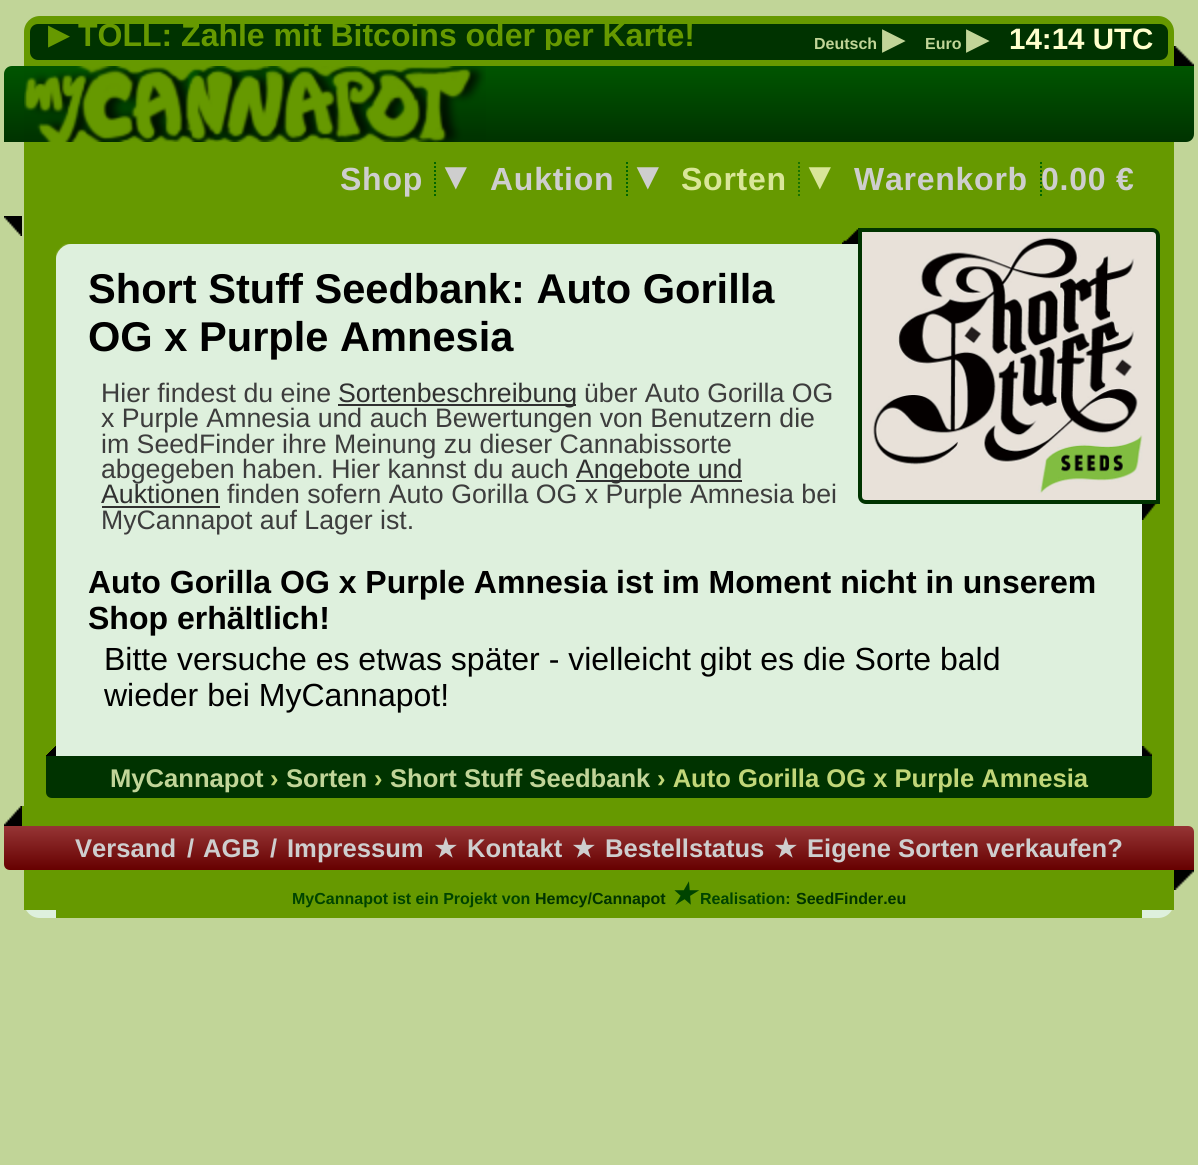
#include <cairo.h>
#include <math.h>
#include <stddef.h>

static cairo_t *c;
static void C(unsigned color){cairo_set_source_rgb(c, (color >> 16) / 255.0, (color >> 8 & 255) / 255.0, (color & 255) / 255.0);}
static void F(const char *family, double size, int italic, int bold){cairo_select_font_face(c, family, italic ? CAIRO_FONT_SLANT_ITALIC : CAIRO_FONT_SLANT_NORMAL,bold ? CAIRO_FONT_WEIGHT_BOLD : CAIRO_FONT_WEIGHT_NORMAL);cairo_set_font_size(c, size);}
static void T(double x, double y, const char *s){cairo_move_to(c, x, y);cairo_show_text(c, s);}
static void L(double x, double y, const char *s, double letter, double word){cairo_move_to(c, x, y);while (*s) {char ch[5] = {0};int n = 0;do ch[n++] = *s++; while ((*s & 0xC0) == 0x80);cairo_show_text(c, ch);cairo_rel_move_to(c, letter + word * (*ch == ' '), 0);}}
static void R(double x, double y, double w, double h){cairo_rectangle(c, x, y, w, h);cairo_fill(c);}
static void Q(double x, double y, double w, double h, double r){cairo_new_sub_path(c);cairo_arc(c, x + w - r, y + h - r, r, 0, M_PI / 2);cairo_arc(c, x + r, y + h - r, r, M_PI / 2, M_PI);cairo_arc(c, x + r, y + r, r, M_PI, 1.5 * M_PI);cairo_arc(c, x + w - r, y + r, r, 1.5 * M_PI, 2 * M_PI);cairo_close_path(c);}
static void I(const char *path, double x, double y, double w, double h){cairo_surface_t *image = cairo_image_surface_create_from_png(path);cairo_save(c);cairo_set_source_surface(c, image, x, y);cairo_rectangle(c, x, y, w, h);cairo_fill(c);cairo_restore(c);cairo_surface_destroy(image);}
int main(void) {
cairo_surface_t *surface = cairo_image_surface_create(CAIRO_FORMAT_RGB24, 1198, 1165);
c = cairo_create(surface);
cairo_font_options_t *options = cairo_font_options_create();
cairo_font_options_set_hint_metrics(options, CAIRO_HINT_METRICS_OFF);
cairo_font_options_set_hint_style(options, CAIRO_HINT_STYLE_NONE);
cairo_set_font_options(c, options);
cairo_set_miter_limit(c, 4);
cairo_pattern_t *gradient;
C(0xc1d598);
cairo_paint(c);
C(0x669900);
cairo_new_path(c);
cairo_move_to(c,40,16);
cairo_line_to(c,1158,16);
cairo_curve_to(c,1167,16,1174,23,1174,32);
cairo_line_to(c,1174,236);
cairo_line_to(c,24,236);
cairo_line_to(c,24,32);
cairo_curve_to(c,24,23,31,16,40,16);
cairo_close_path(c);
cairo_fill(c);
C(0x003300);
Q(30,24,1138,36,8);
cairo_fill(c);
F("DejaVu Sans",27,0,1);
C(0x669900);
T(48,44,"▶");
cairo_save(c);
cairo_rectangle(c,48,18,646,32);
cairo_clip(c);
F("Liberation Sans",32,0,1);
T(78,46,"TOLL: Zahle mit Bitcoins oder per Karte!");
cairo_restore(c);
F("Liberation Sans",16,0,1);
C(0xc1d598);
T(814,49,"Deutsch");
F("DejaVu Sans",29,0,1);
T(882,49,"▶");
F("Liberation Sans",16,0,1);
T(925,49,"Euro");
F("DejaVu Sans",29,0,1);
T(966,49,"▶");
F("Liberation Sans",29.5,0,1);
C(0xffffcc);
T(1009,49,"14:14 UTC");
I("1.png",1174,46,20,20);
gradient = cairo_pattern_create_linear(4,66,4,142);
cairo_pattern_add_color_stop_rgba(gradient,0,0,0.333,0,1);
cairo_pattern_add_color_stop_rgba(gradient,1,0,0.2,0,1);
cairo_set_source(c,gradient);
cairo_pattern_destroy(gradient);
cairo_new_path(c);
cairo_move_to(c,12,66);
cairo_line_to(c,1194,66);
cairo_line_to(c,1194,134);
cairo_curve_to(c,1194,138.5,1190.5,142,1186,142);
cairo_line_to(c,4,142);
cairo_line_to(c,4,74);
cairo_curve_to(c,4,69.5,7.5,66,12,66);
cairo_close_path(c);
cairo_fill(c);
I("2.png",24,66,462,76);
F("Liberation Sans",32,0,1);
C(0xcecece);
L(340,190,"Shop",.75,0);
cairo_new_path(c);
cairo_move_to(c,435,162);
cairo_line_to(c,435,196);
C(0x006600);
cairo_set_dash(c,(double[]){2,2},2,0);
cairo_stroke(c);
F("Liberation Sans",38,1,1);
C(0xcecece);
L(437,189,"▼",.75,0);
F("Liberation Sans",32,0,1);
L(490,190,"Auktion",.75,0);
cairo_new_path(c);
cairo_move_to(c,627,162);
cairo_line_to(c,627,196);
C(0x006600);
cairo_stroke(c);
F("Liberation Sans",38,1,1);
C(0xcecece);
L(629,189,"▼",.75,0);
F("Liberation Sans",32,0,1);
C(0xd9e699);
L(681,190,"Sorten",.75,0);
cairo_new_path(c);
cairo_move_to(c,799,162);
cairo_line_to(c,799,196);
C(0x1a7300);
cairo_stroke(c);
F("Liberation Sans",38,1,1);
C(0xd9e699);
L(801,189,"▼",.75,0);
F("Liberation Sans",32,0,1);
C(0xcecece);
L(854,190,"Warenkorb",.75,0);
L(1041,190,"0.00 €",.75,0);
cairo_new_path(c);
cairo_move_to(c,1041,162);
cairo_line_to(c,1041,196);
C(0x006600);
cairo_stroke(c);
I("3.png",4,216,18,20);
C(0xdef0dd);
cairo_new_path(c);
cairo_move_to(c,24,236);
cairo_line_to(c,1174,236);
cairo_line_to(c,1174,902);
cairo_curve_to(c,1174,911,1167,918,1158,918);
cairo_line_to(c,40,918);
cairo_curve_to(c,31,918,24,911,24,902);
cairo_close_path(c);
cairo_fill(c);
I("4.png",56,244,16,16);
C(0x669900);
R(56,236,796,8);
R(1142,236,32,674);
R(24,236,32,674);
C(0xdef0dd);
cairo_new_path(c);
cairo_move_to(c,72,244);
cairo_line_to(c,1142,244);
cairo_line_to(c,1142,746);
cairo_line_to(c,56,746);
cairo_line_to(c,56,260);
cairo_curve_to(c,56,251,63,244,72,244);
cairo_close_path(c);
cairo_fill(c);
F("Liberation Sans",41.6,0,1);
C(0x000000);
T(88,303,"Short Stuff Seedbank: Auto Gorilla");
T(88,351,"OG x Purple Amnesia");
I("5.png",842,229,16,15);
I("6.png",1142,504,15,16);
C(0x003300);
cairo_new_path(c);
cairo_move_to(c,858,228);
cairo_line_to(c,1152,228);
cairo_curve_to(c,1156.5,228,1160,231.5,1160,236);
cairo_line_to(c,1160,504);
cairo_line_to(c,866,504);
cairo_curve_to(c,861.5,504,858,500.5,858,496);
cairo_close_path(c);
cairo_fill(c);
I("7.png",862,232,294,268);
F("Liberation Sans",26.7,0,0);
C(0x3d3d3d);
T(101,402,"Hier findest du eine");
C(0x303030);
R(338,404,238,2);
T(338,402,"Sortenbeschreibung");
C(0x3d3d3d);
T(584,402,"über Auto Gorilla OG");
T(101,427,"x Purple Amnesia und auch Bewertungen von Benutzern die");
T(101,453,"im SeedFinder ihre Meinung zu dieser Cannabissorte");
T(101,478,"abgegeben haben. Hier kannst du auch");
C(0x303030);
R(576,480,166,2);
T(576,478,"Angebote und");
T(101,503,"Auktionen");
R(102,506,118,2);
C(0x3d3d3d);
T(227,503,"finden sofern Auto Gorilla OG x Purple Amnesia bei");
T(101,529,"MyCannapot auf Lager ist.");
F("Liberation Sans",32,0,1);
C(0x000000);
T(88,593,"Auto Gorilla OG x Purple Amnesia ist im Moment nicht in unserem");
T(88,629,"Shop erhältlich!");
F("Liberation Sans",32,0,0);
T(104,670,"Bitte versuche es etwas später - vielleicht gibt es die Sorte bald");
T(104,706,"wieder bei MyCannapot!");
I("8.png",1142,746,10,10);
I("9.png",46,746,10,10);
C(0x003300);
cairo_new_path(c);
cairo_move_to(c,46,756);
cairo_line_to(c,1152,756);
cairo_line_to(c,1152,792);
cairo_curve_to(c,1152,795.5,1149.5,798,1146,798);
cairo_line_to(c,52,798);
cairo_curve_to(c,48.5,798,46,795.5,46,792);
cairo_close_path(c);
cairo_fill(c);
F("Liberation Sans",25.6,0,1);
C(0xc1d598);
T(110,787,"MyCannapot");
C(0xc1d678);
T(270,787,"›");
C(0xc1d598);
T(286,787,"Sorten");
C(0xc1d678);
T(374,787,"›");
C(0xc1d598);
T(390,787,"Short Stuff Seedbank");
C(0xc1d678);
T(657,787,"› Auto Gorilla OG x Purple Amnesia");
C(0x669900);
R(56,798,1086,8);
R(22,806,1120,20);
I("10.png",4,806,18,20);
gradient = cairo_pattern_create_linear(4,826,4,870);
cairo_pattern_add_color_stop_rgba(gradient,0,0.588,0.208,0.208,1);
cairo_pattern_add_color_stop_rgba(gradient,1,0.4,0,0,1);
cairo_set_source(c,gradient);
cairo_pattern_destroy(gradient);
cairo_new_path(c);
cairo_move_to(c,4,826);
cairo_line_to(c,1188,826);
cairo_curve_to(c,1191.5,826,1194,828.5,1194,832);
cairo_line_to(c,1194,870);
cairo_line_to(c,10,870);
cairo_curve_to(c,6.5,870,4,867.5,4,864);
cairo_close_path(c);
cairo_fill(c);
C(0xcecece);
T(75,857,"Versand");
T(187,857,"/");
T(203,857,"AGB");
T(270,857,"/");
T(287,857,"Impressum");
F("DejaVu Sans",25.6,0,1);
T(434,857,"★");
F("Liberation Sans",25.6,0,1);
T(467,857,"Kontakt");
F("DejaVu Sans",25.6,0,1);
T(572,857,"★");
F("Liberation Sans",25.6,0,1);
T(605,857,"Bestellstatus");
F("DejaVu Sans",25.6,0,1);
T(774,857,"★");
F("Liberation Sans",25.6,0,1);
T(807,857,"Eigene Sorten verkaufen?");
I("11.png",1174,870,20,20);
C(0x669900);
R(56,870,1086,48);
F("Liberation Sans",16,0,1);
C(0x004400);
T(292,904,"MyCannapot ist ein Projekt von");
C(0x003300);
T(535,904,"Hemcy/Cannapot");
F("DejaVu Sans",29,1,1);
C(0x004400);
T(670,904,"★");
F("Liberation Sans",16,0,1);
T(700,904,"Realisation:");
C(0x003300);
T(796,904,"SeedFinder.eu");
cairo_surface_write_to_png(surface, "o.png");
cairo_font_options_destroy(options);
cairo_destroy(c);
cairo_surface_destroy(surface);
return 0;
}
